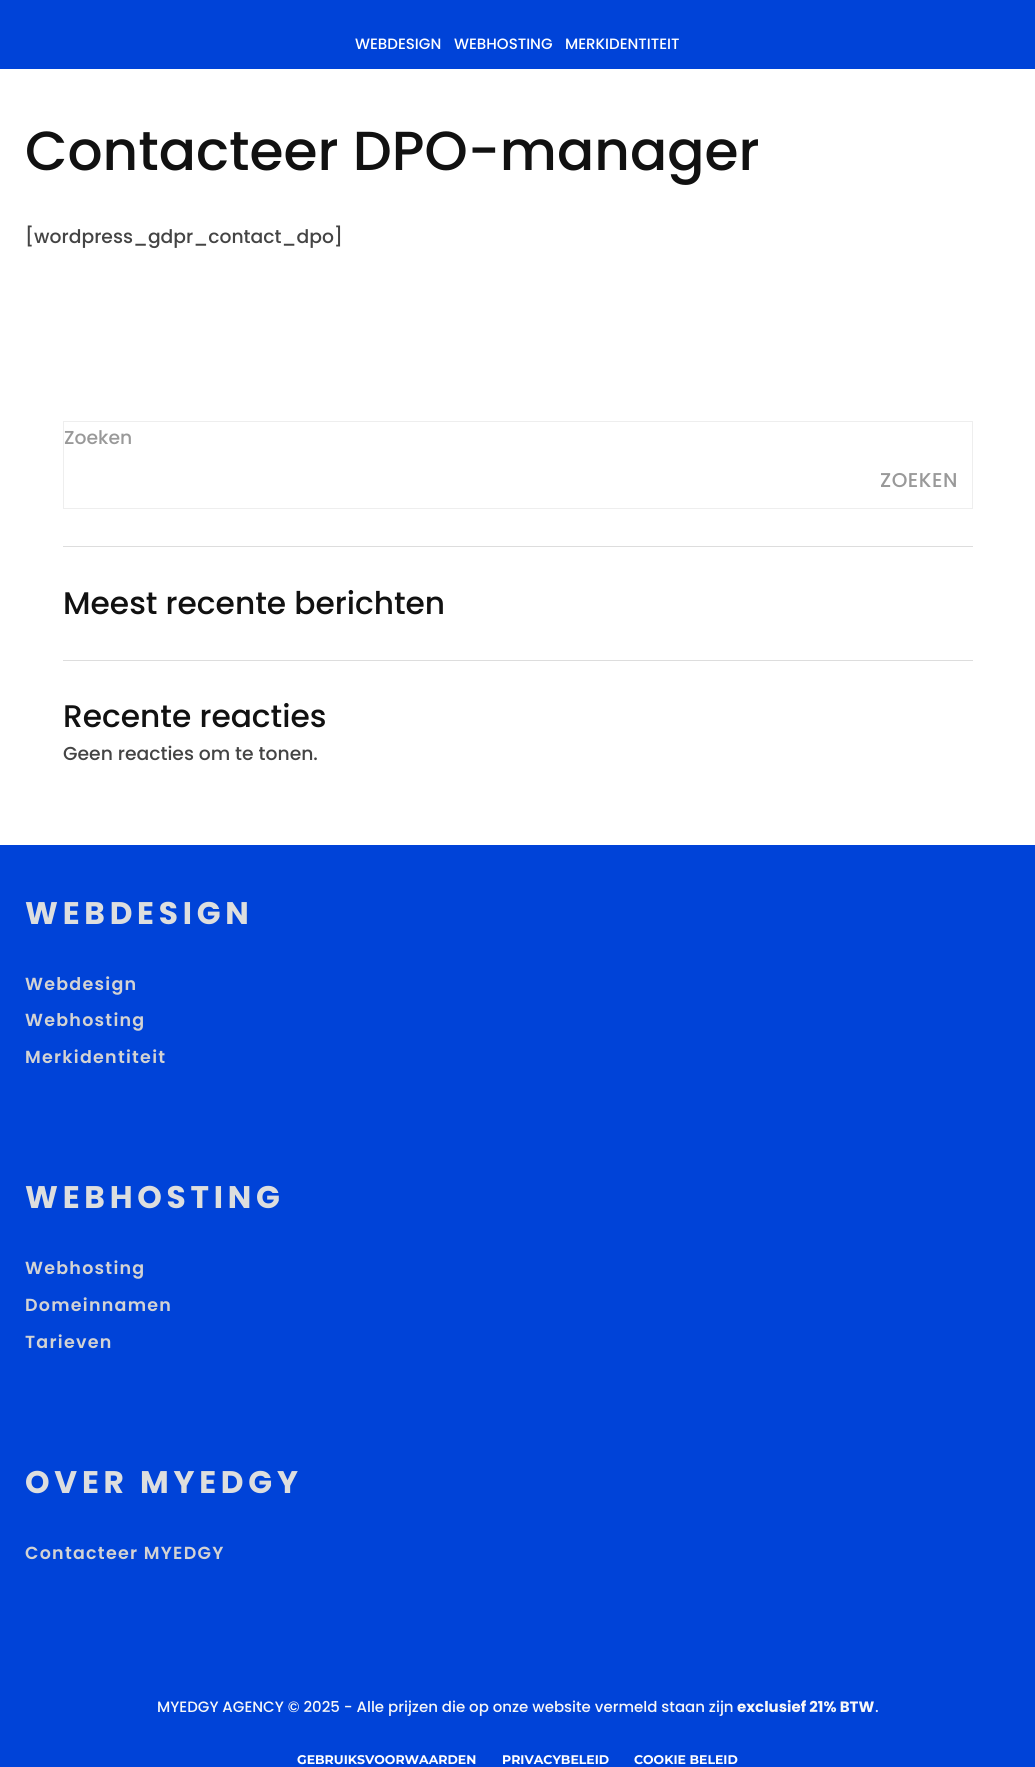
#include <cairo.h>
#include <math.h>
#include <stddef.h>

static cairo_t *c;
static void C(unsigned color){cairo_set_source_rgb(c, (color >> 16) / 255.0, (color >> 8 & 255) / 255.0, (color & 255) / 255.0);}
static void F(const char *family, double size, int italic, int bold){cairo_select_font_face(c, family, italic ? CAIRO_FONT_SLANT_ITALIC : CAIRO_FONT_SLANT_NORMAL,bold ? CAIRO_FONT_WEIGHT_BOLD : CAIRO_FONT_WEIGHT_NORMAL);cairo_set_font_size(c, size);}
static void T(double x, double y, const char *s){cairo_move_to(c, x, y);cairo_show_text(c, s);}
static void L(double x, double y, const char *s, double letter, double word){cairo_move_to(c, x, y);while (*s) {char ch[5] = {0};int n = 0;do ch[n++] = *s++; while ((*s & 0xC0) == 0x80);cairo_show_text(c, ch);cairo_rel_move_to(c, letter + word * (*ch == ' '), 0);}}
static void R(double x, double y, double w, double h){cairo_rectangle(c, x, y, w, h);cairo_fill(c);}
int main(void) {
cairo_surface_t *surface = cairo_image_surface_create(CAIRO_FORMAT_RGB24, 1035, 1767);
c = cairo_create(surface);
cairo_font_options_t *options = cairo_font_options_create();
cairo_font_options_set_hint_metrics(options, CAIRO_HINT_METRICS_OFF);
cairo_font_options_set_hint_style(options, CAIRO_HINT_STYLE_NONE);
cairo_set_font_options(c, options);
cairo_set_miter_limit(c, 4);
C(0xffffff);
cairo_paint(c);
C(0x0043d8);
R(0,0,1035,69);
F("Poppins Medium",15,0,0);
C(0xffffff);
T(355,49,"WEBDESIGN");
T(454,49,"WEBHOSTING");
T(565,49,"MERKIDENTITEIT");
F("Poppins Medium",55,0,0);
C(0x111111);
T(25,170,"Contacteer DPO-manager");
F("Poppins Medium",18.75,0,0);
C(0x444444);
T(25,243,"[wordpress_gdpr_contact_dpo]");
C(0xdddddd);
R(63,546,910,1);
cairo_rectangle(c,63.5,421.5,909,87);
C(0xeeeeee);
cairo_set_line_width(c,1);
cairo_stroke(c);
C(0x999999);
T(64,444,"Zoeken");
F("Poppins Medium",20,0,0);
L(880,487,"ZOEKEN",.5,0);
C(0xdddddd);
R(63,660,910,1);
F("Poppins Medium",31.25,0,0);
C(0x111111);
T(63,614,"Meest recente berichten");
T(63,727,"Recente reacties");
F("Poppins Medium",18.75,0,0);
C(0x444444);
T(63,760,"Geen reacties om te tonen.");
C(0x0043d8);
R(0,845,1035,922);
F("Poppins",31.25,0,1);
C(0xdddede);
L(25,924,"WEBDESIGN",4.75,0);
F("Poppins SemiBold",17.5,0,0);
C(0xd3d3d3);
L(25,990,"Webdesign",1.25,0);
L(25,1026,"Webhosting",1.25,0);
L(25,1063,"Merkidentiteit",1.25,0);
F("Poppins",31.25,0,1);
C(0xdddede);
L(25,1208,"WEBHOSTING",4.75,0);
F("Poppins SemiBold",17.5,0,0);
C(0xd3d3d3);
L(25,1274,"Webhosting",1.25,0);
L(25,1311,"Domeinnamen",1.25,0);
L(25,1348,"Tarieven",1.25,0);
F("Poppins",31.25,0,1);
C(0xdddede);
L(25,1493,"OVER MYEDGY",4.75,0);
F("Poppins SemiBold",17.5,0,0);
C(0xd3d3d3);
L(25,1559,"Contacteer MYEDGY",1.25,0);
F("Poppins Medium",15,0,0);
C(0xf7f7f7);
T(157,1712,"MYEDGY AGENCY © 2025 - Alle prijzen die op onze website vermeld staan zijn");
F("Poppins",15,0,1);
T(737,1712,"exclusief 21% BTW");
F("Poppins Medium",15,0,0);
T(875,1712,".");
F("Montserrat",12.5,0,1);
C(0xffffff);
T(297,1764,"GEBRUIKSVOORWAARDEN");
T(502,1764,"PRIVACYBELEID");
T(634,1764,"COOKIE BELEID");
cairo_surface_write_to_png(surface, "o.png");
cairo_font_options_destroy(options);
cairo_destroy(c);
cairo_surface_destroy(surface);
return 0;
}
